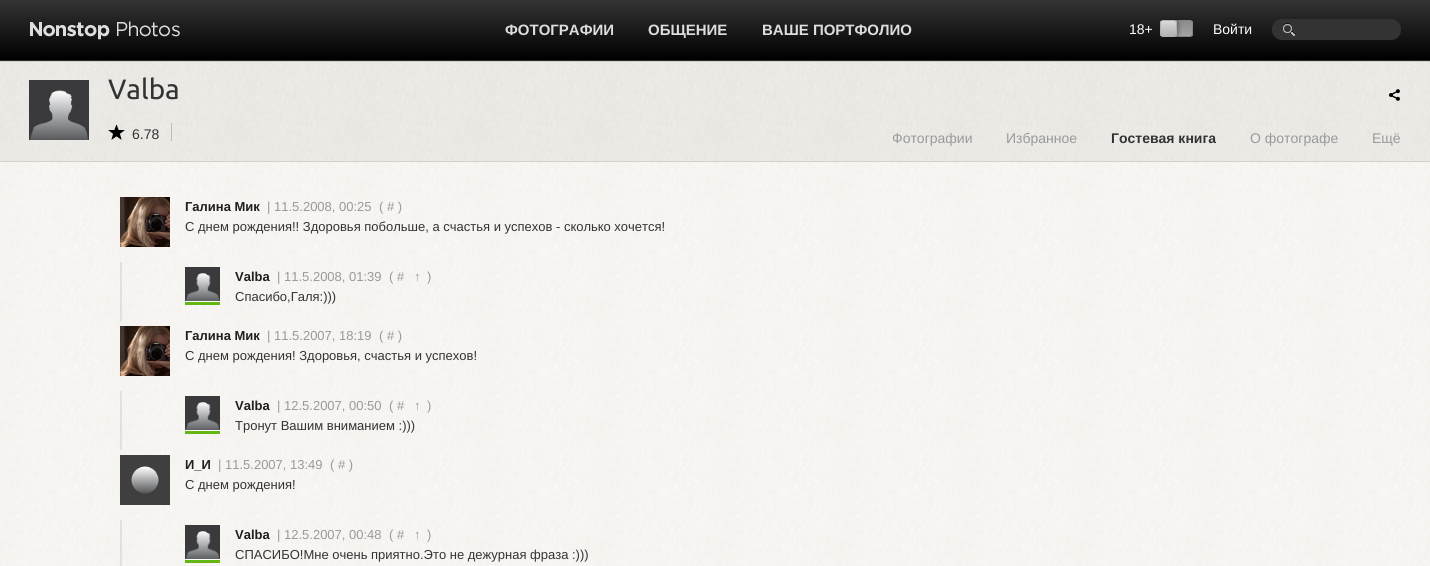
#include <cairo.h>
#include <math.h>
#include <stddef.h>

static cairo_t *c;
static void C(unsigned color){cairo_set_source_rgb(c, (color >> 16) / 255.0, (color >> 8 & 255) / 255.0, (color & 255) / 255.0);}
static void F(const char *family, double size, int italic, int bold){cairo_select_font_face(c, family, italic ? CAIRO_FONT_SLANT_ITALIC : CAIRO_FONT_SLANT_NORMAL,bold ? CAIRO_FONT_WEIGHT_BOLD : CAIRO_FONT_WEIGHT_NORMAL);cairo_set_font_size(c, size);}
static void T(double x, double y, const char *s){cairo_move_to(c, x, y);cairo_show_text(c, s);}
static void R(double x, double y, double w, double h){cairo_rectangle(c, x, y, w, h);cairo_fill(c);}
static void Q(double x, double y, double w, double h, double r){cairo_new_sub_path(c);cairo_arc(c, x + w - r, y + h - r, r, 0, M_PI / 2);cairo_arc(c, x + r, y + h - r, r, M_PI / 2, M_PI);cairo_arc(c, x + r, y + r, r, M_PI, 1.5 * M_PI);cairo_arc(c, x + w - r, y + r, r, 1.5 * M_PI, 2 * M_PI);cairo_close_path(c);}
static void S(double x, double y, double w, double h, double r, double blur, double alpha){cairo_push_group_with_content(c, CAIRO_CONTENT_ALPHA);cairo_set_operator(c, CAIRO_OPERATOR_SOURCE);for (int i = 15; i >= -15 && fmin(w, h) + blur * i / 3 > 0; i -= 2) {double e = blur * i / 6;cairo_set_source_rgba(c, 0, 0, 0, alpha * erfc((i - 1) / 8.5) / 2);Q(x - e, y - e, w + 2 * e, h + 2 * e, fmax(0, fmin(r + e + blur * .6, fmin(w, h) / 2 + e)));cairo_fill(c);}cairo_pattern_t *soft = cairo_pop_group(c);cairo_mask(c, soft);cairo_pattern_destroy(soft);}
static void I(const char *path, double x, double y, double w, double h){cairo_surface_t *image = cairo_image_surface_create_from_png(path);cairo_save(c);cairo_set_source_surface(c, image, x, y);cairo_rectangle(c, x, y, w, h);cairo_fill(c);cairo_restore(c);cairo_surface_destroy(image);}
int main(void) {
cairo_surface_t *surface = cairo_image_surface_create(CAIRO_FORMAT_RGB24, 1430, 566);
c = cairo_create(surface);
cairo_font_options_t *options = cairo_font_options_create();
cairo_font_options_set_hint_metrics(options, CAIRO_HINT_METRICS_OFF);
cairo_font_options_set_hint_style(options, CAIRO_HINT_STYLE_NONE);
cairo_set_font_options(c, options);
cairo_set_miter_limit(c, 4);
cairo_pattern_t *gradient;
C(0xffffff);
cairo_paint(c);
I("1.png",0,162,1430,404);
gradient = cairo_pattern_create_linear(715,0,715,60);
cairo_pattern_add_color_stop_rgba(gradient,0,0.2,0.2,0.2,1);
cairo_pattern_add_color_stop_rgba(gradient,1,0,0,0,1);
cairo_set_source(c,gradient);
cairo_pattern_destroy(gradient);
R(0,0,1430,60);
I("2.png",30,21,150,19);
F("Liberation Sans",15,0,1);
C(0xdddddd);
T(505,35,"ФОТОГРАФИИ");
T(648,35,"ОБЩЕНИЕ");
T(762,35,"ВАШЕ ПОРТФОЛИО");
F("Liberation Sans",14,0,0);
C(0xffffff);
T(1129,34,"18+");
cairo_save(c);
Q(1161,20,32,17,3);
cairo_clip(c);
gradient = cairo_pattern_create_linear(1177,36,1177,21);
cairo_pattern_add_color_stop_rgba(gradient,0,0.635,0.635,0.635,1);
cairo_pattern_add_color_stop_rgba(gradient,1,0.549,0.549,0.549,1);
cairo_set_source(c,gradient);
cairo_pattern_destroy(gradient);
R(1176,21,17,15);
cairo_restore(c);
Q(1161.5,20.5,31,16,2.5);
C(0x858585);
cairo_set_line_width(c,1);
cairo_stroke(c);
C(0x000000);
S(1162,20,17,17,3,2,.3);
cairo_save(c);
Q(1160,20,17,17,3);
cairo_clip(c);
gradient = cairo_pattern_create_linear(1169,36,1169,21);
cairo_pattern_add_color_stop_rgba(gradient,0,0.694,0.694,0.694,1);
cairo_pattern_add_color_stop_rgba(gradient,1,0.855,0.855,0.855,1);
cairo_set_source(c,gradient);
cairo_pattern_destroy(gradient);
R(1160,21,17,15);
cairo_restore(c);
Q(1160.5,20.5,16,16,2.5);
C(0xb1b1b1);
cairo_stroke(c);
C(0xffffff);
T(1213,34,"Войти");
C(0x333333);
Q(1272,19,129,21,10);
cairo_fill(c);
I("3.png",1283,23,12,13);
C(0x282828);
R(0,60,1430,1);
I("4.png",0,62,1430,99);
C(0xd3d1cc);
R(0,61,1430,1);
R(0,161,1430,1);
I("5.png",29,80,60,60);
F("Ubuntu",28,0,0);
C(0x333333);
T(108,99,"Valba");
I("6.png",108,125,17,15);
C(0xbbbbbb);
R(171,123,1,18);
F("Liberation Sans",14,0,0);
C(0x333333);
T(132,139,"6.78");
I("7.png",1389,89,11,12);
C(0x999999);
T(892,143,"Фотографии");
T(1006,143,"Избранное");
F("Liberation Sans",14,0,1);
C(0x333333);
T(1111,143,"Гостевая книга");
F("Liberation Sans",14,0,0);
C(0x999999);
T(1250,143,"О фотографе");
T(1372,143,"Ещё");
I("8.png",120,197,50,50);
F("Liberation Sans",13,0,1);
C(0x1f1f1f);
T(185,211,"Галина Мик");
F("Liberation Sans",13,0,0);
C(0x999999);
T(267,211,"| 11.5.2008, 00:25");
T(379,211,"( # )");
C(0x333333);
T(185,231,"С днем рождения!! Здоровья побольше, а счастья и успехов - сколько хочется!");
C(0xe0e0e0);
R(120,262,2,59);
I("9.png",185,267,35,34);
C(0x62b713);
R(185,302,35,3);
C(0xffffff);
R(185,301,35,1);
F("Liberation Sans",13,0,1);
C(0x1f1f1f);
T(235,281,"Valba");
F("Liberation Sans",13,0,0);
C(0x999999);
T(277,281,"| 11.5.2008, 01:39");
T(389,281,"( #");
T(414,281,"↑");
T(427,281,")");
C(0x333333);
T(235,301,"Спасибо,Галя:)))");
I("8.png",120,326,50,50);
F("Liberation Sans",13,0,1);
C(0x1f1f1f);
T(185,340,"Галина Мик");
F("Liberation Sans",13,0,0);
C(0x999999);
T(267,340,"| 11.5.2007, 18:19");
T(379,340,"( # )");
C(0x333333);
T(185,360,"С днем рождения! Здоровья, счастья и успехов!");
C(0xe0e0e0);
R(120,391,2,59);
I("9.png",185,396,35,34);
C(0x62b713);
R(185,431,35,3);
C(0xffffff);
R(185,430,35,1);
F("Liberation Sans",13,0,1);
C(0x1f1f1f);
T(235,410,"Valba");
F("Liberation Sans",13,0,0);
C(0x999999);
T(277,410,"| 12.5.2007, 00:50");
T(389,410,"( #");
T(414,410,"↑");
T(427,410,")");
C(0x333333);
T(235,430,"Тронут Вашим вниманием :)))");
I("10.png",120,455,50,50);
F("Liberation Sans",13,0,1);
C(0x1f1f1f);
T(185,469,"И_И");
F("Liberation Sans",13,0,0);
C(0x999999);
T(218,469,"| 11.5.2007, 13:49");
T(330,469,"( # )");
C(0x333333);
T(185,489,"С днем рождения!");
C(0xe0e0e0);
R(120,520,2,46);
I("9.png",185,525,35,34);
C(0x62b713);
R(185,560,35,3);
C(0xffffff);
R(185,559,35,1);
F("Liberation Sans",13,0,1);
C(0x1f1f1f);
T(235,539,"Valba");
F("Liberation Sans",13,0,0);
C(0x999999);
T(277,539,"| 12.5.2007, 00:48");
T(389,539,"( #");
T(414,539,"↑");
T(427,539,")");
C(0x333333);
T(235,559,"СПАСИБО!Мне очень приятно.Это не дежурная фраза :)))");
cairo_surface_write_to_png(surface, "o.png");
cairo_font_options_destroy(options);
cairo_destroy(c);
cairo_surface_destroy(surface);
return 0;
}
